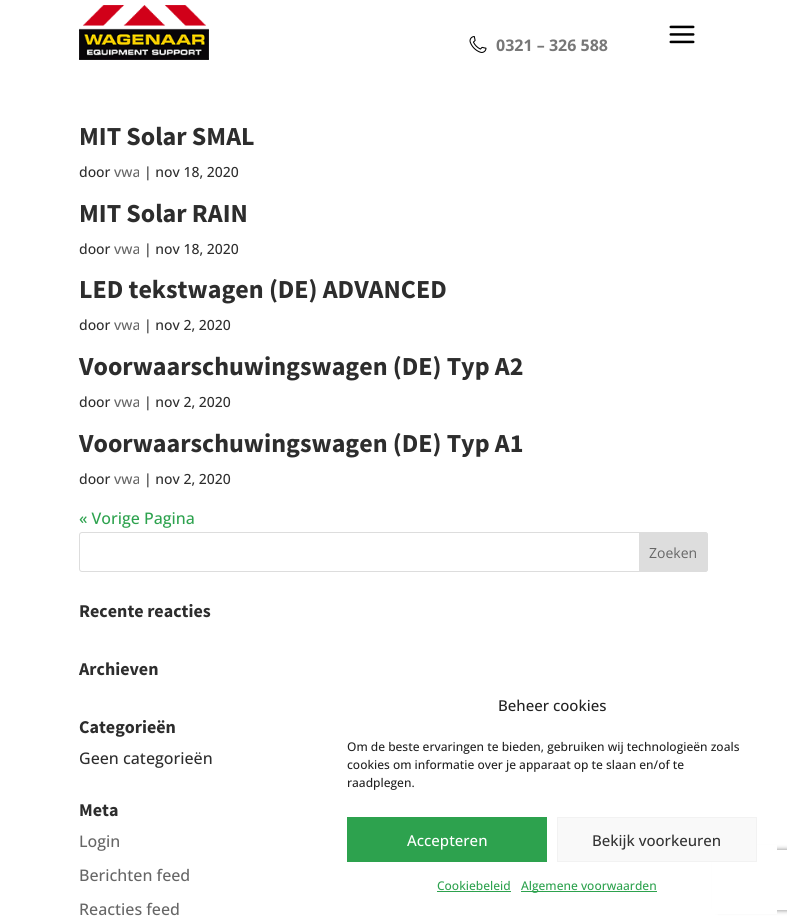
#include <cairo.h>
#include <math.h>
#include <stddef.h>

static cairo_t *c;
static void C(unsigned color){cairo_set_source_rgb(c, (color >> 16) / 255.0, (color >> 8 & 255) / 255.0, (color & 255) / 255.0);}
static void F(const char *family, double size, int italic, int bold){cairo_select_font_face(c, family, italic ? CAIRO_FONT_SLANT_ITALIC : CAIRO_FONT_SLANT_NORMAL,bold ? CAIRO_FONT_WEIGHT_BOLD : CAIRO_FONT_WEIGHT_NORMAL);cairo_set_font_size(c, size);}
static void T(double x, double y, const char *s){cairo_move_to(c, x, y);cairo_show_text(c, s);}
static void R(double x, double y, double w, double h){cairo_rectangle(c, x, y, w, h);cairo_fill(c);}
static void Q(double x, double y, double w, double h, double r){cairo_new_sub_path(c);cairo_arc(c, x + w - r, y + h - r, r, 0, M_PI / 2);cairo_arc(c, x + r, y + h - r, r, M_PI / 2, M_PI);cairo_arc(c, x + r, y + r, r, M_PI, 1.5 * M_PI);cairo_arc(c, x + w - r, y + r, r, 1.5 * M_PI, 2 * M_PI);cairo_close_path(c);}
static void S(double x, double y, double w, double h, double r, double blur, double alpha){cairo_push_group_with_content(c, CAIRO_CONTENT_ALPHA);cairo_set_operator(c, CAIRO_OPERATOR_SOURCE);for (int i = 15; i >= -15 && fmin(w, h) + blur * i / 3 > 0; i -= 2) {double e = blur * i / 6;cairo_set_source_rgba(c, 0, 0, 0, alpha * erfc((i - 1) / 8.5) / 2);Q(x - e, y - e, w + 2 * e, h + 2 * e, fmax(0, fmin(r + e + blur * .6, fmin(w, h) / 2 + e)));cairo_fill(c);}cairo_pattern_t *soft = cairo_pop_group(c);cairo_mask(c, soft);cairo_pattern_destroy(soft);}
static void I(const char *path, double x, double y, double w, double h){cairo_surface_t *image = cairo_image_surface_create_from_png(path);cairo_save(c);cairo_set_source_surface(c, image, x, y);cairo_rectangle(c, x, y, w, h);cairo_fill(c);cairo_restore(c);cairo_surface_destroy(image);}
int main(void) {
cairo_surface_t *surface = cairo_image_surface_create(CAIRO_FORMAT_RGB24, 787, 924);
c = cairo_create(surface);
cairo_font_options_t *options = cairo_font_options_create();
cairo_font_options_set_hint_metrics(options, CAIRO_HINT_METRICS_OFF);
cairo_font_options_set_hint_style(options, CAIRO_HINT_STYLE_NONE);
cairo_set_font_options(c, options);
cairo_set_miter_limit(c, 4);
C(0xffffff);
cairo_paint(c);
I("1.png",79,5,130,55);
I("2.png",669,25,26,19);
I("3.png",469,36,18,17);
F("Open Sans",16,0,1);
C(0x777777);
T(496,51,"0321 – 326 588");
F("Source Sans Pro",26,0,1);
C(0x2d2d2d);
T(79,145,"MIT Solar SMAL");
F("Open Sans Medium",14,0,0);
T(79,177,"door");
C(0x666666);
T(114,177,"vwa");
C(0x2d2d2d);
T(144,177,"| nov 18, 2020");
F("Source Sans Pro",26,0,1);
T(79,222,"MIT Solar RAIN");
F("Open Sans Medium",14,0,0);
T(79,254,"door");
C(0x666666);
T(114,254,"vwa");
C(0x2d2d2d);
T(144,254,"| nov 18, 2020");
F("Source Sans Pro",26,0,1);
T(79,298,"LED tekstwagen (DE) ADVANCED");
F("Open Sans Medium",14,0,0);
T(79,330,"door");
C(0x666666);
T(114,330,"vwa");
C(0x2d2d2d);
T(144,330,"| nov 2, 2020");
F("Source Sans Pro",26,0,1);
T(79,375,"Voorwaarschuwingswagen (DE) Typ A2");
F("Open Sans Medium",14,0,0);
T(79,407,"door");
C(0x666666);
T(114,407,"vwa");
C(0x2d2d2d);
T(144,407,"| nov 2, 2020");
F("Source Sans Pro",26,0,1);
T(79,452,"Voorwaarschuwingswagen (DE) Typ A1");
F("Open Sans Medium",14,0,0);
T(79,484,"door");
C(0x666666);
T(114,484,"vwa");
C(0x2d2d2d);
T(144,484,"| nov 2, 2020");
F("Open Sans Medium",16,0,0);
C(0x2da24e);
T(79,524,"« Vorige Pagina");
Q(79.5,532.5,628,39,2.5);
C(0xdddddd);
cairo_set_line_width(c,1);
cairo_stroke(c);
cairo_new_path(c);
cairo_move_to(c,639.5,532.5);
cairo_line_to(c,705,532.5);
cairo_curve_to(c,706.5,532.5,707.5,533.5,707.5,535);
cairo_line_to(c,707.5,569);
cairo_curve_to(c,707.5,570.5,706.5,571.5,705,571.5);
cairo_line_to(c,639.5,571.5);
cairo_close_path(c);
cairo_fill_preserve(c);
cairo_stroke(c);
F("Open Sans",14,0,0);
C(0x666666);
T(649,558,"Zoeken");
F("Source Sans Pro",18,0,1);
C(0x2d2d2d);
T(79,617,"Recente reacties");
T(79,675,"Archieven");
T(79,733,"Categorieën");
F("Open Sans Medium",16,0,0);
T(79,764,"Geen categorieën");
F("Source Sans Pro",18,0,1);
T(79,816,"Meta");
F("Open Sans Medium",16,0,0);
C(0x666666);
T(79,847,"Login");
T(79,881,"Berichten feed");
T(79,915,"Reacties feed");
cairo_save(c);
cairo_set_fill_rule(c,CAIRO_FILL_RULE_EVEN_ODD);
cairo_new_path(c);
cairo_move_to(c,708,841);
cairo_line_to(c,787,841);
cairo_line_to(c,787,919);
cairo_line_to(c,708,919);
cairo_close_path(c);
cairo_move_to(c,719,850);
cairo_line_to(c,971,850);
cairo_curve_to(c,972,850,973,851,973,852);
cairo_line_to(c,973,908);
cairo_curve_to(c,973,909,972,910,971,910);
cairo_line_to(c,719,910);
cairo_curve_to(c,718,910,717,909,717,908);
cairo_line_to(c,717,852);
cairo_curve_to(c,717,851,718,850,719,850);
cairo_close_path(c);
cairo_clip(c);
C(0x808080);
S(717,850,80,60,2,2.5,1);
cairo_restore(c);
C(0xffffff);
R(712,845,65,69);
F("Open Sans Medium",15,0,0);
C(0x222222);
T(498,711,"Beheer cookies");
F("Open Sans Medium",12,0,0);
T(347,751,"Om de beste ervaringen te bieden, gebruiken wij technologieën zoals");
T(347,769,"cookies om informatie over je apparaat op te slaan en/of te");
T(347,787,"raadplegen.");
C(0x2da24e);
R(347,817,200,45);
F("Open Sans Medium",15,0,0);
C(0xffffff);
T(407,846,"Accepteren");
C(0xf9f9f9);
cairo_rectangle(c,557.5,817.5,199,44);
cairo_fill_preserve(c);
C(0xf2f2f2);
cairo_stroke(c);
C(0x333333);
T(592,846,"Bekijk voorkeuren");
F("Open Sans Medium",12,0,0);
C(0x2da24e);
T(437,890,"Cookiebeleid");
R(437,891,74,1);
R(521,891,136,1);
T(521,890,"Algemene voorwaarden");
cairo_surface_write_to_png(surface, "o.png");
cairo_font_options_destroy(options);
cairo_destroy(c);
cairo_surface_destroy(surface);
return 0;
}
